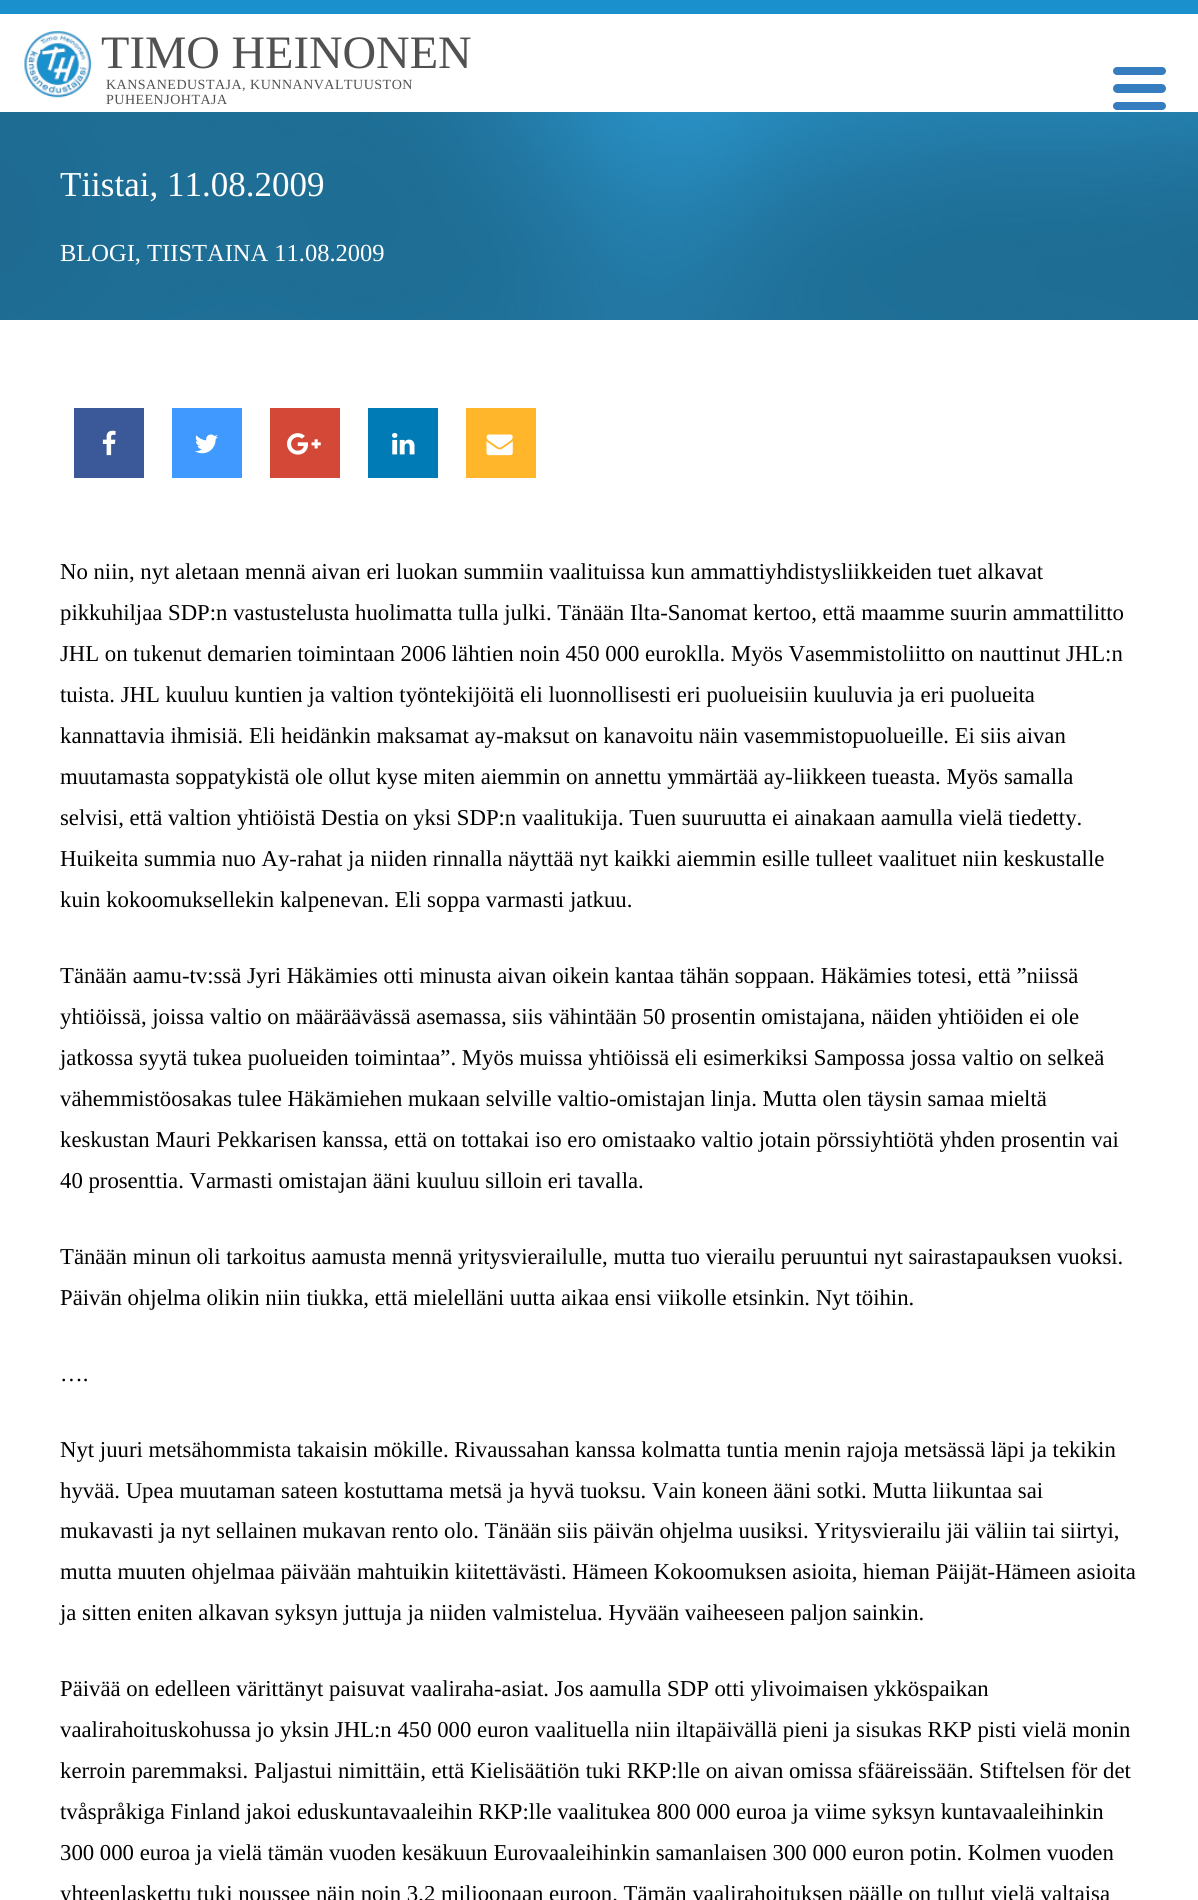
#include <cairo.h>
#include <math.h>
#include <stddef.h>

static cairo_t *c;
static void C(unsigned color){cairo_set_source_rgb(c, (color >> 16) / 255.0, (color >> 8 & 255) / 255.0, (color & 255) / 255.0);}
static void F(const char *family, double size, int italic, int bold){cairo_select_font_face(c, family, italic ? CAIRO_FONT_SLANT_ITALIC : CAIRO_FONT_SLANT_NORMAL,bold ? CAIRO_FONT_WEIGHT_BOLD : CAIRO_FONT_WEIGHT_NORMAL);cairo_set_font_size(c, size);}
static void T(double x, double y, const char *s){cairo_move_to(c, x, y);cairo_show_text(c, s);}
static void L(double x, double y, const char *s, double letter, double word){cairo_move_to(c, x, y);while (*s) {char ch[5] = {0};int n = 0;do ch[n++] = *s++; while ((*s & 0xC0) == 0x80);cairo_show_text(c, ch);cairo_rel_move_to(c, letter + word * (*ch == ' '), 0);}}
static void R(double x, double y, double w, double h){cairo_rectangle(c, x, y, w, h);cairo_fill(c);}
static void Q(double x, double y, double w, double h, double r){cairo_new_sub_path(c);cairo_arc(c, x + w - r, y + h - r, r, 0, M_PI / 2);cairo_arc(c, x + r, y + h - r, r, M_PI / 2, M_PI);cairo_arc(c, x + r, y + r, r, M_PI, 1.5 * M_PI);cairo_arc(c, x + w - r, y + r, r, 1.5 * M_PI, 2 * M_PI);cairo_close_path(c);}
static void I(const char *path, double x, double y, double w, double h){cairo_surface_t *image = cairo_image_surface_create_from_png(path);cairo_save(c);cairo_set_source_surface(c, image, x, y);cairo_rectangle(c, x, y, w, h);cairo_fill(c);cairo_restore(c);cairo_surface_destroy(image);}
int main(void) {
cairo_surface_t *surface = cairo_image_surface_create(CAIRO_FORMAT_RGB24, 1198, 1900);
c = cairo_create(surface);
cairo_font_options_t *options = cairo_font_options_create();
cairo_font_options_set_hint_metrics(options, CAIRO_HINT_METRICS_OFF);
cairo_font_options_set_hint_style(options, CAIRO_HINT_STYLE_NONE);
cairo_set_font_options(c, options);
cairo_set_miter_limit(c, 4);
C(0xffffff);
cairo_paint(c);
C(0x1a91cc);
R(0,0,1198,14);
I("1.png",24,31,67,67);
F("Liberation Serif",46.5,0,0);
C(0x515151);
T(101,68,"TIMO HEINONEN");
F("Liberation Serif",14,0,0);
L(106,89,"KANSANEDUSTAJA, KUNNANVALTUUSTON",.5,0);
L(106,104,"PUHEENJOHTAJA",.5,0);
C(0x367dbf);
Q(1113,84,53,9,4.5);
cairo_fill(c);
Q(1113,67,53,8,4);
cairo_fill(c);
Q(1113,102,53,8,4);
cairo_fill(c);
I("2.png",0,112,1198,208);
F("Liberation Serif",35,0,0);
C(0xffffff);
T(60,196,"Tiistai, 11.08.2009");
F("Liberation Serif",24.5,0,0);
T(60,261,"BLOGI, TIISTAINA 11.08.2009");
C(0x3b5998);
R(74,408,70,70);
I("3.png",102,430,14,26);
C(0x4099ff);
R(172,408,70,70);
I("4.png",195,434,23,20);
C(0xd34836);
R(270,408,70,70);
I("5.png",287,433,34,22);
C(0x007bb6);
R(368,408,70,70);
I("6.png",392,432,23,23);
C(0xffb62a);
R(466,408,70,70);
I("7.png",486,434,27,22);
F("Liberation Serif",22.75,0,0);
C(0x000000);
T(60,579,"No niin, nyt aletaan mennä aivan eri luokan summiin vaalituissa kun ammattiyhdistysliikkeiden tuet alkavat");
T(60,620,"pikkuhiljaa SDP:n vastustelusta huolimatta tulla julki. Tänään Ilta-Sanomat kertoo, että maamme suurin ammattilitto");
T(60,661,"JHL on tukenut demarien toimintaan 2006 lähtien noin 450 000 euroklla. Myös Vasemmistoliitto on nauttinut JHL:n");
T(60,702,"tuista. JHL kuuluu kuntien ja valtion työntekijöitä eli luonnollisesti eri puolueisiin kuuluvia ja eri puolueita");
T(60,743,"kannattavia ihmisiä. Eli heidänkin maksamat ay-maksut on kanavoitu näin vasemmistopuolueille. Ei siis aivan");
T(60,784,"muutamasta soppatykistä ole ollut kyse miten aiemmin on annettu ymmärtää ay-liikkeen tueasta. Myös samalla");
T(60,825,"selvisi, että valtion yhtiöistä Destia on yksi SDP:n vaalitukija. Tuen suuruutta ei ainakaan aamulla vielä tiedetty.");
T(60,866,"Huikeita summia nuo Ay-rahat ja niiden rinnalla näyttää nyt kaikki aiemmin esille tulleet vaalituet niin keskustalle");
T(60,907,"kuin kokoomuksellekin kalpenevan. Eli soppa varmasti jatkuu.");
T(60,983,"Tänään aamu-tv:ssä Jyri Häkämies otti minusta aivan oikein kantaa tähän soppaan. Häkämies totesi, että ”niissä");
T(60,1024,"yhtiöissä, joissa valtio on määräävässä asemassa, siis vähintään 50 prosentin omistajana, näiden yhtiöiden ei ole");
T(60,1065,"jatkossa syytä tukea puolueiden toimintaa”. Myös muissa yhtiöissä eli esimerkiksi Sampossa jossa valtio on selkeä");
T(60,1106,"vähemmistöosakas tulee Häkämiehen mukaan selville valtio-omistajan linja. Mutta olen täysin samaa mieltä");
T(60,1147,"keskustan Mauri Pekkarisen kanssa, että on tottakai iso ero omistaako valtio jotain pörssiyhtiötä yhden prosentin vai");
T(60,1188,"40 prosenttia. Varmasti omistajan ääni kuuluu silloin eri tavalla.");
T(60,1264,"Tänään minun oli tarkoitus aamusta mennä yritysvierailulle, mutta tuo vierailu peruuntui nyt sairastapauksen vuoksi.");
T(60,1305,"Päivän ohjelma olikin niin tiukka, että mielelläni uutta aikaa ensi viikolle etsinkin. Nyt töihin.");
T(60,1381,"….");
T(60,1457,"Nyt juuri metsähommista takaisin mökille. Rivaussahan kanssa kolmatta tuntia menin rajoja metsässä läpi ja tekikin");
T(60,1498,"hyvää. Upea muutaman sateen kostuttama metsä ja hyvä tuoksu. Vain koneen ääni sotki. Mutta liikuntaa sai");
T(60,1538,"mukavasti ja nyt sellainen mukavan rento olo. Tänään siis päivän ohjelma uusiksi. Yritysvierailu jäi väliin tai siirtyi,");
T(60,1579,"mutta muuten ohjelmaa päivään mahtuikin kiitettävästi. Hämeen Kokoomuksen asioita, hieman Päijät-Hämeen asioita");
T(60,1620,"ja sitten eniten alkavan syksyn juttuja ja niiden valmistelua. Hyvään vaiheeseen paljon sainkin.");
T(60,1696,"Päivää on edelleen värittänyt paisuvat vaaliraha-asiat. Jos aamulla SDP otti ylivoimaisen ykköspaikan");
T(60,1737,"vaalirahoituskohussa jo yksin JHL:n 450 000 euron vaalituella niin iltapäivällä pieni ja sisukas RKP pisti vielä monin");
T(60,1778,"kerroin paremmaksi. Paljastui nimittäin, että Kielisäätiön tuki RKP:lle on aivan omissa sfääreissään. Stiftelsen för det");
T(60,1819,"tvåspråkiga Finland jakoi eduskuntavaaleihin RKP:lle vaalitukea 800 000 euroa ja viime syksyn kuntavaaleihinkin");
T(60,1860,"300 000 euroa ja vielä tämän vuoden kesäkuun Eurovaaleihinkin samanlaisen 300 000 euron potin. Kolmen vuoden");
T(60,1901,"yhteenlaskettu tuki noussee näin noin 3,2 miljoonaan euroon. Tämän vaalirahoituksen päälle on tullut vielä valtaisa");
cairo_surface_write_to_png(surface, "o.png");
cairo_font_options_destroy(options);
cairo_destroy(c);
cairo_surface_destroy(surface);
return 0;
}
